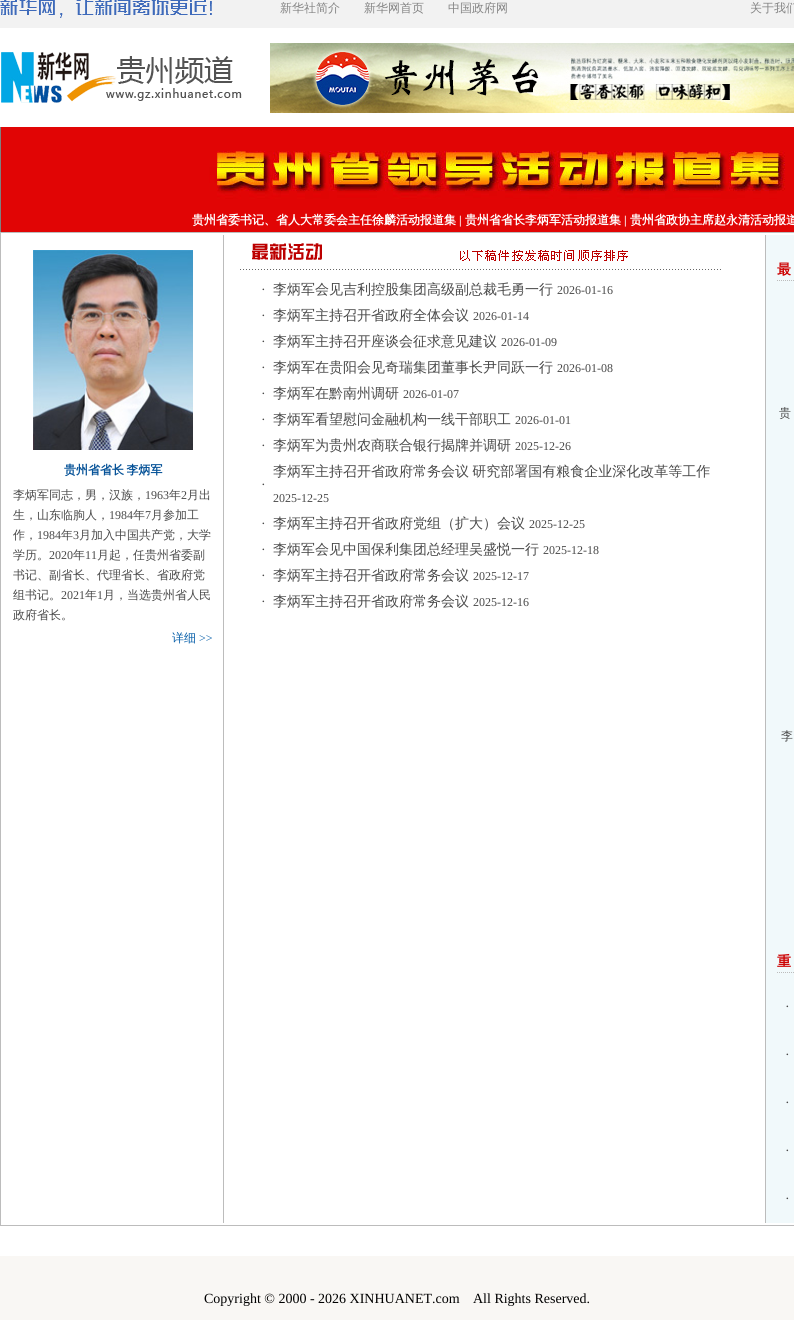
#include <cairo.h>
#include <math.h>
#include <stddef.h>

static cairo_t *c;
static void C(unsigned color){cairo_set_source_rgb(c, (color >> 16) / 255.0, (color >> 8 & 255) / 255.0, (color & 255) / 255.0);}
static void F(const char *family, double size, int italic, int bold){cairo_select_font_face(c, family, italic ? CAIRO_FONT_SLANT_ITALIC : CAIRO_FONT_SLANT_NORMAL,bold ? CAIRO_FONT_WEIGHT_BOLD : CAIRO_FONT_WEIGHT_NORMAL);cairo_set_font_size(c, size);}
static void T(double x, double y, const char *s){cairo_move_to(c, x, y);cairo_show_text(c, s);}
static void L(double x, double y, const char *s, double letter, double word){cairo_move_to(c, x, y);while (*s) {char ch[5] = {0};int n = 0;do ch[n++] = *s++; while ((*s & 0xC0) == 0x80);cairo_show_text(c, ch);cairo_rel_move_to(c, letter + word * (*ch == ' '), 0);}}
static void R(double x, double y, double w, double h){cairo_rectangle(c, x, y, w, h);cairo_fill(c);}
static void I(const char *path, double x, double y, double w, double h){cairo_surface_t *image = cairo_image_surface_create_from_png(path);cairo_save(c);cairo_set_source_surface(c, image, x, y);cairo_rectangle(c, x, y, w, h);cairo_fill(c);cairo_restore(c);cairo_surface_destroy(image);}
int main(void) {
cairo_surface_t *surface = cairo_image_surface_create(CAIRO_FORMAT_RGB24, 794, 1320);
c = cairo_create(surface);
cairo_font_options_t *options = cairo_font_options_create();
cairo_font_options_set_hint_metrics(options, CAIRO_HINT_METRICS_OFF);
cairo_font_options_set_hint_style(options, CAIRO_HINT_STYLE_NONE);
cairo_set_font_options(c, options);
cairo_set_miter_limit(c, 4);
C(0xffffff);
cairo_paint(c);
C(0xf2f2f2);
R(0,0,794,28);
I("1.png",0,0,212,18);
F("WenQuanYi Zen Hei Medium",12,0,0);
C(0x848484);
T(280,12,"新华社简介");
T(364,12,"新华网首页");
T(448,12,"中国政府网");
T(750,12,"关于我们");
I("2.png",1,52,241,51);
I("3.png",270,43,524,70);
C(0x808080);
R(0,127,1,105);
I("4.png",1,127,793,80);
C(0xe10505);
R(1,207,793,25);
F("WenQuanYi Zen Hei",12,0,1);
C(0xffffff);
T(192,224,"贵州省委书记、省人大常委会主任徐麟活动报道集");
F("Liberation Serif",12,0,1);
T(459,224,"|");
F("WenQuanYi Zen Hei",12,0,1);
T(465,224,"贵州省省长李炳军活动报道集");
F("Liberation Serif",12,0,1);
T(624,224,"|");
F("WenQuanYi Zen Hei",12,0,1);
T(630,224,"贵州省政协主席赵永清活动报道");
cairo_rectangle(c,.5,232.5,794,993);
C(0xbcbcbc);
cairo_set_line_width(c,1);
cairo_stroke(c);
R(223,235,1,988);
I("5.png",33,250,160,200);
C(0x045197);
L(64,474,"贵州省省长 李炳军",0,-1);
F("WenQuanYi Zen Hei Medium",12,0,0);
C(0x494949);
T(13,499,"李炳军同志，男，汉族，");
F("Liberation Serif",12,0,0);
T(145,499,"1963");
F("WenQuanYi Zen Hei Medium",12,0,0);
T(169,499,"年");
F("Liberation Serif",12,0,0);
T(181,499,"2");
F("WenQuanYi Zen Hei Medium",12,0,0);
T(187,499,"月出");
T(13,519,"生，山东临朐人，");
F("Liberation Serif",12,0,0);
T(109,519,"1984");
F("WenQuanYi Zen Hei Medium",12,0,0);
T(133,519,"年");
F("Liberation Serif",12,0,0);
T(145,519,"7");
F("WenQuanYi Zen Hei Medium",12,0,0);
T(151,519,"月参加工");
T(13,539,"作，");
F("Liberation Serif",12,0,0);
T(37,539,"1984");
F("WenQuanYi Zen Hei Medium",12,0,0);
T(61,539,"年");
F("Liberation Serif",12,0,0);
T(73,539,"3");
F("WenQuanYi Zen Hei Medium",12,0,0);
T(79,539,"月加入中国共产党，大学");
T(13,559,"学历。");
F("Liberation Serif",12,0,0);
T(49,559,"2020");
F("WenQuanYi Zen Hei Medium",12,0,0);
T(73,559,"年");
F("Liberation Serif",12,0,0);
T(85,559,"11");
F("WenQuanYi Zen Hei Medium",12,0,0);
T(97,559,"月起，任贵州省委副");
T(13,579,"书记、副省长、代理省长、省政府党");
T(13,599,"组书记。");
F("Liberation Serif",12,0,0);
T(61,599,"2021");
F("WenQuanYi Zen Hei Medium",12,0,0);
T(85,599,"年");
F("Liberation Serif",12,0,0);
T(97,599,"1");
F("WenQuanYi Zen Hei Medium",12,0,0);
T(103,599,"月，当选贵州省人民");
T(13,619,"政府省长。");
C(0x075fa9);
T(172,642,"详细");
F("Liberation Serif",12,0,0);
T(199,642,">>");
I("6.png",240,243,481,27);
F("Liberation Serif",14,0,0);
C(0x494949);
T(261,294,"·");
F("WenQuanYi Zen Hei Medium",14,0,0);
T(273,294,"李炳军会见吉利控股集团高级副总裁毛勇一行");
F("Liberation Serif",12,0,0);
T(557,294,"2026-01-16");
F("Liberation Serif",14,0,0);
T(261,320,"·");
F("WenQuanYi Zen Hei Medium",14,0,0);
T(273,320,"李炳军主持召开省政府全体会议");
F("Liberation Serif",12,0,0);
T(473,320,"2026-01-14");
F("Liberation Serif",14,0,0);
T(261,346,"·");
F("WenQuanYi Zen Hei Medium",14,0,0);
T(273,346,"李炳军主持召开座谈会征求意见建议");
F("Liberation Serif",12,0,0);
T(501,346,"2026-01-09");
F("Liberation Serif",14,0,0);
T(261,372,"·");
F("WenQuanYi Zen Hei Medium",14,0,0);
T(273,372,"李炳军在贵阳会见奇瑞集团董事长尹同跃一行");
F("Liberation Serif",12,0,0);
T(557,372,"2026-01-08");
F("Liberation Serif",14,0,0);
T(261,398,"·");
F("WenQuanYi Zen Hei Medium",14,0,0);
T(273,398,"李炳军在黔南州调研");
F("Liberation Serif",12,0,0);
T(403,398,"2026-01-07");
F("Liberation Serif",14,0,0);
T(261,424,"·");
F("WenQuanYi Zen Hei Medium",14,0,0);
T(273,424,"李炳军看望慰问金融机构一线干部职工");
F("Liberation Serif",12,0,0);
T(515,424,"2026-01-01");
F("Liberation Serif",14,0,0);
T(261,450,"·");
F("WenQuanYi Zen Hei Medium",14,0,0);
T(273,450,"李炳军为贵州农商联合银行揭牌并调研");
F("Liberation Serif",12,0,0);
T(515,450,"2025-12-26");
F("Liberation Serif",14,0,0);
T(261,489,"·");
F("WenQuanYi Zen Hei Medium",14,0,0);
L(273,476,"李炳军主持召开省政府常务会议 研究部署国有粮食企业深化改革等工作",0,-1);
F("Liberation Serif",12,0,0);
T(273,502,"2025-12-25");
F("Liberation Serif",14,0,0);
T(261,528,"·");
F("WenQuanYi Zen Hei Medium",14,0,0);
T(273,528,"李炳军主持召开省政府党组（扩大）会议");
F("Liberation Serif",12,0,0);
T(529,528,"2025-12-25");
F("Liberation Serif",14,0,0);
T(261,554,"·");
F("WenQuanYi Zen Hei Medium",14,0,0);
T(273,554,"李炳军会见中国保利集团总经理吴盛悦一行");
F("Liberation Serif",12,0,0);
T(543,554,"2025-12-18");
F("Liberation Serif",14,0,0);
T(261,580,"·");
F("WenQuanYi Zen Hei Medium",14,0,0);
T(273,580,"李炳军主持召开省政府常务会议");
F("Liberation Serif",12,0,0);
T(473,580,"2025-12-17");
F("Liberation Serif",14,0,0);
T(261,606,"·");
F("WenQuanYi Zen Hei Medium",14,0,0);
T(273,606,"李炳军主持召开省政府常务会议");
F("Liberation Serif",12,0,0);
T(473,606,"2025-12-16");
C(0xf1f9fb);
R(766,235,28,988);
C(0xbcbcbc);
R(765,235,1,988);
cairo_new_path(c);
cairo_move_to(c,777,280.5);
cairo_line_to(c,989,280.5);
cairo_set_dash(c,(double[]){1,1},2,0);
cairo_stroke(c);
F("WenQuanYi Zen Hei",14,0,1);
C(0xcc0000);
T(777,274,"最");
F("WenQuanYi Zen Hei Medium",12,0,0);
C(0x494949);
L(779,417,"贵",0,-1);
T(781,740,"李");
cairo_new_path(c);
cairo_move_to(c,777,972.5);
cairo_line_to(c,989,972.5);
C(0xbcbcbc);
cairo_stroke(c);
F("WenQuanYi Zen Hei",14,0,1);
C(0xcc0000);
T(777,966,"重");
F("Liberation Serif",14,0,0);
C(0x494949);
T(785,1011,"·");
T(785,1059,"·");
T(785,1107,"·");
T(785,1155,"·");
T(785,1203,"·");
C(0xf9f7f4);
R(0,1256,794,64);
C(0x000000);
T(204,1303,"Copyright © 2000 - 2026 XINHUANET.com");
T(473,1303,"All Rights Reserved.");
cairo_surface_write_to_png(surface, "o.png");
cairo_font_options_destroy(options);
cairo_destroy(c);
cairo_surface_destroy(surface);
return 0;
}
